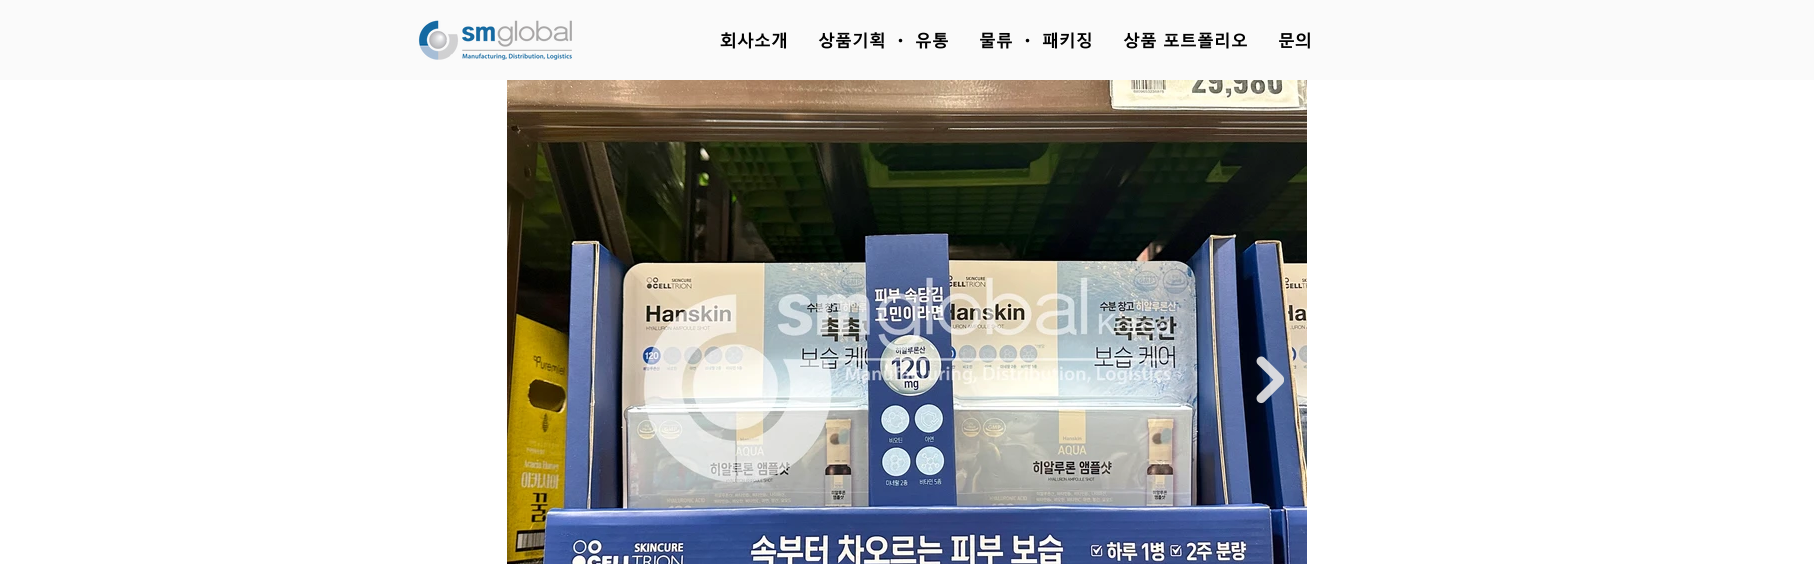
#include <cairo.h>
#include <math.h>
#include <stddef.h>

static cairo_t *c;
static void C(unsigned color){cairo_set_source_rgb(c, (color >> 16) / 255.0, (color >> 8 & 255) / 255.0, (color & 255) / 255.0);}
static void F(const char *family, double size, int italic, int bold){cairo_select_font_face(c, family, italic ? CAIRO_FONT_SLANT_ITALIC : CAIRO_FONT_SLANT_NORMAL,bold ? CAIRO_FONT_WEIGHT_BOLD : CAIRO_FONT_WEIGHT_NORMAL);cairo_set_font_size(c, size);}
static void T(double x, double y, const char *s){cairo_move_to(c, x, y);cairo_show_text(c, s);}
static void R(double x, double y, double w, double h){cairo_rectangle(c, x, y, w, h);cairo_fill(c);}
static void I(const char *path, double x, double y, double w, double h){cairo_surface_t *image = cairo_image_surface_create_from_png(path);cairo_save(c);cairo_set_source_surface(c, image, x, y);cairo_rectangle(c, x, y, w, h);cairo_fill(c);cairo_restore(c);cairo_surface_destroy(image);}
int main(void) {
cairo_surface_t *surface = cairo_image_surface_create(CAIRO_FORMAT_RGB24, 1814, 564);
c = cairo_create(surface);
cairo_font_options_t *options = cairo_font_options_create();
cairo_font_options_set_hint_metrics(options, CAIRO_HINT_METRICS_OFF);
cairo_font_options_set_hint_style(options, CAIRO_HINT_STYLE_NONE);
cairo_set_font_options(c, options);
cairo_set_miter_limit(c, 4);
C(0xffffff);
cairo_paint(c);
C(0xfafafa);
R(0,0,1814,80);
I("1.png",418,20,154,40);
F("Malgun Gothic",17,0,1);
C(0x000000);
T(720,47,"회사소개");
T(818,47,"상품기획");
F("Noto Sans CJK KR",17,0,0);
T(892,47,"‧");
F("Malgun Gothic",17,0,1);
T(915,47,"유통");
T(979,47,"물류");
F("Noto Sans CJK KR",17,0,0);
T(1019,47,"‧");
F("Malgun Gothic",17,0,1);
T(1042,47,"패키징");
T(1123,47,"상품 포트폴리오");
T(1278,47,"문의");
I("2.png",507,80,800,484);
I("3.png",1256,356,28,48);
cairo_surface_write_to_png(surface, "o.png");
cairo_font_options_destroy(options);
cairo_destroy(c);
cairo_surface_destroy(surface);
return 0;
}
